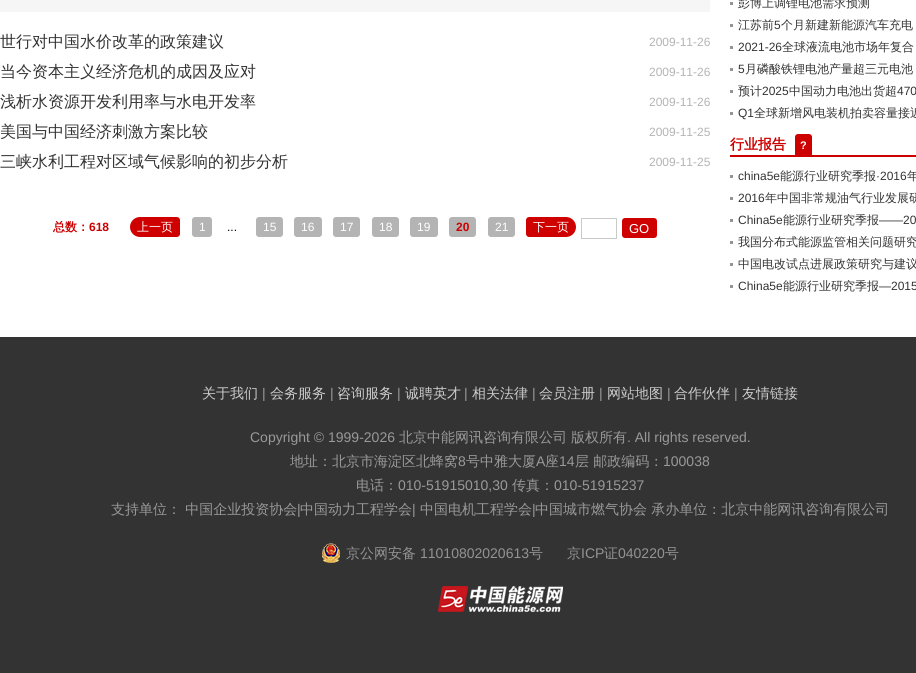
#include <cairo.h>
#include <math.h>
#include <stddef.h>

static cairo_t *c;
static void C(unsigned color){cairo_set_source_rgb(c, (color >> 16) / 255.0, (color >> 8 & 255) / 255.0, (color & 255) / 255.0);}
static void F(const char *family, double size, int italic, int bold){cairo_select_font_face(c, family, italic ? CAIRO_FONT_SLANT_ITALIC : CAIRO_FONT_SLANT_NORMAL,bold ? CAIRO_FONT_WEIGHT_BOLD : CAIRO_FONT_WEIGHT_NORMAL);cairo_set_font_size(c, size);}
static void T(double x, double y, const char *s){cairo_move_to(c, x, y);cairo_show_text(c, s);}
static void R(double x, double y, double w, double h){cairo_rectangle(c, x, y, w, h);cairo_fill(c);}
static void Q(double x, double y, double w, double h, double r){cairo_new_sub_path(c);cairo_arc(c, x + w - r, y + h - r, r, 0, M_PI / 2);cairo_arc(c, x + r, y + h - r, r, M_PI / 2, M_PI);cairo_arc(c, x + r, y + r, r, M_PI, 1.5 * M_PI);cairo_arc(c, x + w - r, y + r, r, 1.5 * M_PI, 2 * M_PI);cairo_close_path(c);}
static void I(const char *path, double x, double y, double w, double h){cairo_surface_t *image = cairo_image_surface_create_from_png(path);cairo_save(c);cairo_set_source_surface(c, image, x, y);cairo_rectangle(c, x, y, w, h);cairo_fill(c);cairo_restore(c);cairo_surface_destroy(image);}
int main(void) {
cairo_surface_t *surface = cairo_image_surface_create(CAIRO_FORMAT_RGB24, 916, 673);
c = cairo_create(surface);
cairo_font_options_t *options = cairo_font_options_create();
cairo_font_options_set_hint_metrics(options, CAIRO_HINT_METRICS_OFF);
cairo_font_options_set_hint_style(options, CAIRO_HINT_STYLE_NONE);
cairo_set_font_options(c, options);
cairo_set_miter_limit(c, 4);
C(0xffffff);
cairo_paint(c);
C(0xf6f6f6);
R(0,0,710,12);
F("WenQuanYi Zen Hei Medium",16,0,0);
C(0x333333);
T(0,47,"世行对中国水价改革的政策建议");
F("Liberation Sans",12,0,0);
C(0xb4b4b4);
T(649,46,"2009-11-26");
F("WenQuanYi Zen Hei Medium",16,0,0);
C(0x333333);
T(0,77,"当今资本主义经济危机的成因及应对");
F("Liberation Sans",12,0,0);
C(0xb4b4b4);
T(649,76,"2009-11-26");
F("WenQuanYi Zen Hei Medium",16,0,0);
C(0x333333);
T(0,107,"浅析水资源开发利用率与水电开发率");
F("Liberation Sans",12,0,0);
C(0xb4b4b4);
T(649,106,"2009-11-26");
F("WenQuanYi Zen Hei Medium",16,0,0);
C(0x333333);
T(0,137,"美国与中国经济刺激方案比较");
F("Liberation Sans",12,0,0);
C(0xb4b4b4);
T(649,136,"2009-11-25");
F("WenQuanYi Zen Hei Medium",16,0,0);
C(0x333333);
T(0,167,"三峡水利工程对区域气候影响的初步分析");
F("Liberation Sans",12,0,0);
C(0xb4b4b4);
T(649,166,"2009-11-25");
F("WenQuanYi Zen Hei",12,0,1);
C(0xcc0000);
T(53,231,"总数：");
F("Liberation Sans",12,0,1);
T(89,231,"618");
C(0xce0100);
cairo_new_path(c);
cairo_move_to(c,140,217);
cairo_line_to(c,177,217);
cairo_curve_to(c,178.5,217,180,218.5,180,220);
cairo_line_to(c,180,234);
cairo_curve_to(c,180,235.5,178.5,237,177,237);
cairo_line_to(c,140,237);
cairo_curve_to(c,134.5,237,130,232.5,130,227);
cairo_curve_to(c,130,221.5,134.5,217,140,217);
cairo_close_path(c);
cairo_fill(c);
F("WenQuanYi Zen Hei Medium",12,0,0);
C(0xffffff);
T(137,231,"上一页");
C(0xb4b4b4);
Q(192,217,20,20,3);
cairo_fill(c);
F("Liberation Sans",12,0,0);
C(0xffffff);
T(199,231,"1");
C(0x000000);
T(227,231,"...");
C(0xb4b4b4);
Q(256,217,27,20,3);
cairo_fill(c);
C(0xffffff);
T(263,231,"15");
C(0xb4b4b4);
Q(294,217,28,20,3);
cairo_fill(c);
C(0xffffff);
T(301,231,"16");
C(0xb4b4b4);
Q(333,217,27,20,3);
cairo_fill(c);
C(0xffffff);
T(340,231,"17");
C(0xb4b4b4);
Q(372,217,27,20,3);
cairo_fill(c);
C(0xffffff);
T(379,231,"18");
C(0xb4b4b4);
Q(410,217,28,20,3);
cairo_fill(c);
C(0xffffff);
T(417,231,"19");
C(0xb4b4b4);
Q(449,217,27,20,3);
cairo_fill(c);
F("Liberation Sans",12,0,1);
C(0xcc0000);
T(456,231,"20");
C(0xb4b4b4);
Q(488,217,27,20,3);
cairo_fill(c);
F("Liberation Sans",12,0,0);
C(0xffffff);
T(495,231,"21");
C(0xce0100);
cairo_new_path(c);
cairo_move_to(c,529,217);
cairo_line_to(c,566,217);
cairo_curve_to(c,571.5,217,576,221.5,576,227);
cairo_curve_to(c,576,232.5,571.5,237,566,237);
cairo_line_to(c,529,237);
cairo_curve_to(c,527.5,237,526,235.5,526,234);
cairo_line_to(c,526,220);
cairo_curve_to(c,526,218.5,527.5,217,529,217);
cairo_close_path(c);
cairo_fill(c);
F("WenQuanYi Zen Hei Medium",12,0,0);
C(0xffffff);
T(533,231,"下一页");
cairo_rectangle(c,581.5,218.5,35,20);
C(0xcacaca);
cairo_set_line_width(c,1);
cairo_stroke(c);
C(0xce0100);
Q(622,218,35,20,3);
cairo_fill(c);
F("Liberation Sans",13,0,0);
C(0xffffff);
T(629,233,"GO");
C(0x949494);
R(730,2,3,3);
F("WenQuanYi Zen Hei Medium",12,0,0);
C(0x333333);
T(738,7,"彭博上调锂电池需求预测");
C(0x949494);
R(730,24,3,3);
C(0x333333);
T(738,29,"江苏前");
F("Liberation Sans",12,0,0);
T(774,29,"5");
F("WenQuanYi Zen Hei Medium",12,0,0);
T(781,29,"个月新建新能源汽车充电");
C(0x949494);
R(730,46,3,3);
F("Liberation Sans",12,0,0);
C(0x333333);
T(738,51,"2021-26");
F("WenQuanYi Zen Hei Medium",12,0,0);
T(782,51,"全球液流电池市场年复合");
C(0x949494);
R(730,68,3,3);
F("Liberation Sans",12,0,0);
C(0x333333);
T(738,73,"5");
F("WenQuanYi Zen Hei Medium",12,0,0);
T(745,73,"月磷酸铁锂电池产量超三元电池");
C(0x949494);
R(730,90,3,3);
C(0x333333);
T(738,95,"预计");
F("Liberation Sans",12,0,0);
T(762,95,"2025");
F("WenQuanYi Zen Hei Medium",12,0,0);
T(789,95,"中国动力电池出货超");
F("Liberation Sans",12,0,0);
T(897,95,"470");
C(0x949494);
R(730,112,3,3);
C(0x333333);
T(738,117,"Q1");
F("WenQuanYi Zen Hei Medium",12,0,0);
T(754,117,"全球新增风电装机拍卖容量接近");
C(0xcc0000);
R(730,155,186,2);
F("WenQuanYi Zen Hei",14,0,1);
T(730,149,"行业报告");
Q(795,134,17,23,3);
cairo_fill(c);
F("Liberation Sans",11,0,1);
C(0xffffff);
T(800,149,"?");
C(0x949494);
R(730,175,3,3);
F("Liberation Sans",12,0,0);
C(0x333333);
T(738,180,"china5e");
F("WenQuanYi Zen Hei Medium",12,0,0);
T(780,180,"能源行业研究季报");
F("Liberation Sans",12,0,0);
T(876,180,"·2016");
F("WenQuanYi Zen Hei Medium",12,0,0);
T(907,180,"年");
C(0x949494);
R(730,197,3,3);
F("Liberation Sans",12,0,0);
C(0x333333);
T(738,202,"2016");
F("WenQuanYi Zen Hei Medium",12,0,0);
T(765,202,"年中国非常规油气行业发展研");
C(0x949494);
R(730,219,3,3);
F("Liberation Sans",12,0,0);
C(0x333333);
T(738,224,"China5e");
F("WenQuanYi Zen Hei Medium",12,0,0);
T(783,224,"能源行业研究季报");
F("Liberation Sans",12,0,0);
T(879,224,"——20");
C(0x949494);
R(730,241,3,3);
F("WenQuanYi Zen Hei Medium",12,0,0);
C(0x333333);
T(738,246,"我国分布式能源监管相关问题研究");
C(0x949494);
R(730,263,3,3);
C(0x333333);
T(738,268,"中国电改试点进展政策研究与建议");
C(0x949494);
R(730,285,3,3);
F("Liberation Sans",12,0,0);
C(0x333333);
T(738,290,"China5e");
F("WenQuanYi Zen Hei Medium",12,0,0);
T(783,290,"能源行业研究季报");
F("Liberation Sans",12,0,0);
T(879,290,"—2015");
R(0,337,916,336);
F("WenQuanYi Zen Hei Medium",14,0,0);
C(0xcccccc);
T(202,398,"关于我们");
F("Liberation Sans",14,0,0);
C(0x999999);
T(262,398,"|");
F("WenQuanYi Zen Hei Medium",14,0,0);
C(0xcccccc);
T(270,398,"会务服务");
F("Liberation Sans",14,0,0);
C(0x999999);
T(330,398,"|");
F("WenQuanYi Zen Hei Medium",14,0,0);
C(0xcccccc);
T(337,398,"咨询服务");
F("Liberation Sans",14,0,0);
C(0x999999);
T(397,398,"|");
F("WenQuanYi Zen Hei Medium",14,0,0);
C(0xcccccc);
T(405,398,"诚聘英才");
F("Liberation Sans",14,0,0);
C(0x999999);
T(464,398,"|");
F("WenQuanYi Zen Hei Medium",14,0,0);
C(0xcccccc);
T(472,398,"相关法律");
F("Liberation Sans",14,0,0);
C(0x999999);
T(532,398,"|");
F("WenQuanYi Zen Hei Medium",14,0,0);
C(0xcccccc);
T(539,398,"会员注册");
F("Liberation Sans",14,0,0);
C(0x999999);
T(599,398,"|");
F("WenQuanYi Zen Hei Medium",14,0,0);
C(0xcccccc);
T(607,398,"网站地图");
F("Liberation Sans",14,0,0);
C(0x999999);
T(667,398,"|");
F("WenQuanYi Zen Hei Medium",14,0,0);
C(0xcccccc);
T(674,398,"合作伙伴");
F("Liberation Sans",14,0,0);
C(0x999999);
T(734,398,"|");
F("WenQuanYi Zen Hei Medium",14,0,0);
C(0xcccccc);
T(742,398,"友情链接");
F("Liberation Sans",14,0,0);
C(0x999999);
T(250,442,"Copyright © 1999-2026");
F("WenQuanYi Zen Hei Medium",14,0,0);
T(399,442,"北京中能网讯咨询有限公司");
T(571,442,"版权所有");
F("Liberation Sans",14,0,0);
T(627,442,". All rights reserved.");
F("WenQuanYi Zen Hei Medium",14,0,0);
T(290,466,"地址：北京市海淀区北蜂窝");
F("Liberation Sans",14,0,0);
T(458,466,"8");
F("WenQuanYi Zen Hei Medium",14,0,0);
T(466,466,"号中雅大厦");
F("Liberation Sans",14,0,0);
T(536,466,"A");
F("WenQuanYi Zen Hei Medium",14,0,0);
T(545,466,"座");
F("Liberation Sans",14,0,0);
T(559,466,"14");
F("WenQuanYi Zen Hei Medium",14,0,0);
T(575,466,"层 邮政编码：");
F("Liberation Sans",14,0,0);
T(663,466,"100038");
F("WenQuanYi Zen Hei Medium",14,0,0);
T(356,490,"电话：");
F("Liberation Sans",14,0,0);
T(398,490,"010-51915010,30");
F("WenQuanYi Zen Hei Medium",14,0,0);
T(512,490,"传真：");
F("Liberation Sans",14,0,0);
T(554,490,"010-51915237");
F("WenQuanYi Zen Hei Medium",14,0,0);
T(111,514,"支持单位： 中国企业投资协会");
F("Liberation Sans",14,0,0);
T(297,514,"|");
F("WenQuanYi Zen Hei Medium",14,0,0);
T(300,514,"中国动力工程学会");
F("Liberation Sans",14,0,0);
T(412,514,"|");
F("WenQuanYi Zen Hei Medium",14,0,0);
T(420,514,"中国电机工程学会");
F("Liberation Sans",14,0,0);
T(532,514,"|");
F("WenQuanYi Zen Hei Medium",14,0,0);
T(535,514,"中国城市燃气协会 承办单位：北京中能网讯咨询有限公司");
I("1.png",322,543,18,20);
C(0x939393);
T(346,558,"京公网安备");
F("Liberation Sans",14,0,0);
T(420,558,"11010802020613");
F("WenQuanYi Zen Hei Medium",14,0,0);
T(529,558,"号");
T(567,558,"京");
F("Liberation Sans",14,0,0);
T(581,558,"ICP");
F("WenQuanYi Zen Hei Medium",14,0,0);
T(604,558,"证");
F("Liberation Sans",14,0,0);
T(618,558,"040220");
F("WenQuanYi Zen Hei Medium",14,0,0);
T(665,558,"号");
I("2.png",438,586,125,26);
cairo_surface_write_to_png(surface, "o.png");
cairo_font_options_destroy(options);
cairo_destroy(c);
cairo_surface_destroy(surface);
return 0;
}
